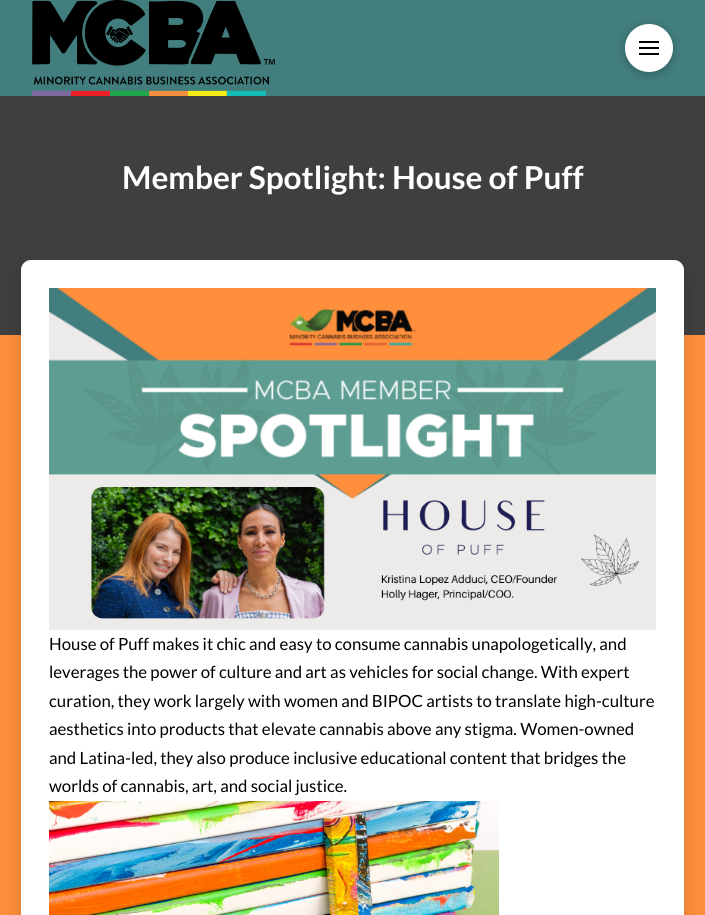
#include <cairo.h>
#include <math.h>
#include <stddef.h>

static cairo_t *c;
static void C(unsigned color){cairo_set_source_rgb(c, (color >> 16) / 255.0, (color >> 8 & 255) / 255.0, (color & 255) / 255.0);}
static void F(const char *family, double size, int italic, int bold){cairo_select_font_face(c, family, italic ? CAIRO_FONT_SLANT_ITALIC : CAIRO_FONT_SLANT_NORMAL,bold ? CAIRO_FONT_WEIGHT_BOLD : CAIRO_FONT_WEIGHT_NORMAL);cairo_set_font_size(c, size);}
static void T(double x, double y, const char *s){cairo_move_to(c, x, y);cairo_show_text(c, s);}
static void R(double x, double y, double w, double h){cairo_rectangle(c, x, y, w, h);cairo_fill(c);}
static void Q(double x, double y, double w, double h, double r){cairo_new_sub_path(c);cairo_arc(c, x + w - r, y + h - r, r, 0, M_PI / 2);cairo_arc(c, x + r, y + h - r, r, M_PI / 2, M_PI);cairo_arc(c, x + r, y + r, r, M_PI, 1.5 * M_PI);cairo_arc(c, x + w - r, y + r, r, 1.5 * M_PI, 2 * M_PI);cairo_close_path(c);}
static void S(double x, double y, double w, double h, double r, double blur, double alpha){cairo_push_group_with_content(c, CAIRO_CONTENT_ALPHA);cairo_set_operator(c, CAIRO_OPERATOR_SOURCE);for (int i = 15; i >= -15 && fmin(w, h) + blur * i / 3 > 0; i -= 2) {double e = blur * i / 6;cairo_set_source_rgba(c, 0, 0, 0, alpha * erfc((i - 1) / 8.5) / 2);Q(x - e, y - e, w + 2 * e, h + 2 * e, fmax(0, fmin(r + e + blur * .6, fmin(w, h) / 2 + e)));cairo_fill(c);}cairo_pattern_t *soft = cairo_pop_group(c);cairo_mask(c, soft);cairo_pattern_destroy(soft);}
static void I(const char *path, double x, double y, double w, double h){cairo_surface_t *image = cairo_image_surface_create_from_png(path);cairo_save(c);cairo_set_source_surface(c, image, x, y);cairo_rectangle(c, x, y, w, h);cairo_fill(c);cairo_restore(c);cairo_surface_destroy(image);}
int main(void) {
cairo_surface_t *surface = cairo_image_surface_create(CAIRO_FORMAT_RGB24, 705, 915);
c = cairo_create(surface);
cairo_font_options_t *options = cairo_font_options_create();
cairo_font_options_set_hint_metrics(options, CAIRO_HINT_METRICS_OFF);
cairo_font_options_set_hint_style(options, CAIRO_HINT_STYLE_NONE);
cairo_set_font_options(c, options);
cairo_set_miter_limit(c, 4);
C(0x3f3f3f);
cairo_paint(c);
C(0x427e7e);
R(0,0,705,96);
I("1.png",32,0,243,96);
C(0x000000);
S(625,26,48,48,24,5,.25);
C(0xffffff);
cairo_arc(c,649,48,24,0,2 * M_PI);
cairo_fill(c);
C(0x000000);
R(639,41,20,2);
R(639,47,20,2);
R(639,53,20,2);
F("Lato",31.6,0,1);
C(0xffffff);
T(122,189,"Member Spotlight: House of Puff");
C(0xff8f3c);
R(0,335,705,580);
C(0x000000);
S(21,269,663,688,10,10.5,.15);
C(0xffffff);
cairo_new_path(c);
cairo_move_to(c,31,260);
cairo_line_to(c,674,260);
cairo_curve_to(c,679.5,260,684,264.5,684,270);
cairo_line_to(c,684,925);
cairo_line_to(c,21,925);
cairo_line_to(c,21,270);
cairo_curve_to(c,21,264.5,25.5,260,31,260);
cairo_close_path(c);
cairo_fill(c);
I("2.png",49,288,607,342);
F("Lato",16.8,0,0);
C(0x000000);
T(49,650,"House of Puff makes it chic and easy to consume cannabis unapologetically, and");
T(49,678,"leverages the power of culture and art as vehicles for social change. With expert");
T(49,707,"curation, they work largely with women and BIPOC artists to translate high-culture");
T(49,735,"aesthetics into products that elevate cannabis above any stigma. Women-owned");
T(49,764,"and Latina-led, they also produce inclusive educational content that bridges the");
T(49,792,"worlds of cannabis, art, and social justice.");
I("3.png",49,801,450,114);
cairo_surface_write_to_png(surface, "o.png");
cairo_font_options_destroy(options);
cairo_destroy(c);
cairo_surface_destroy(surface);
return 0;
}
